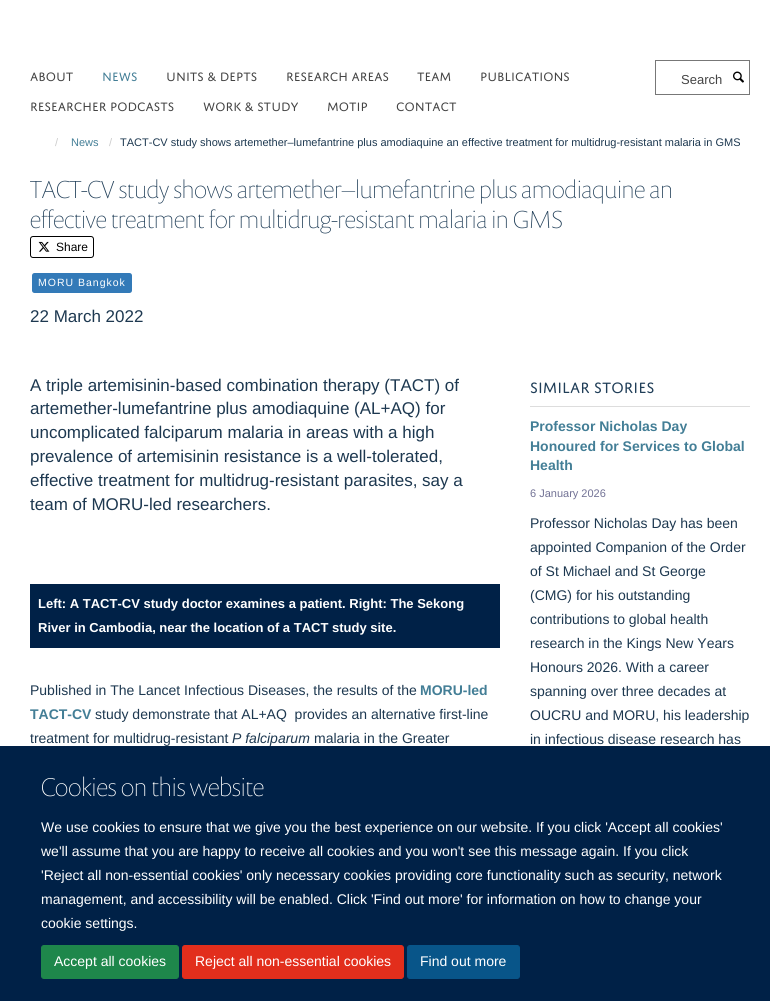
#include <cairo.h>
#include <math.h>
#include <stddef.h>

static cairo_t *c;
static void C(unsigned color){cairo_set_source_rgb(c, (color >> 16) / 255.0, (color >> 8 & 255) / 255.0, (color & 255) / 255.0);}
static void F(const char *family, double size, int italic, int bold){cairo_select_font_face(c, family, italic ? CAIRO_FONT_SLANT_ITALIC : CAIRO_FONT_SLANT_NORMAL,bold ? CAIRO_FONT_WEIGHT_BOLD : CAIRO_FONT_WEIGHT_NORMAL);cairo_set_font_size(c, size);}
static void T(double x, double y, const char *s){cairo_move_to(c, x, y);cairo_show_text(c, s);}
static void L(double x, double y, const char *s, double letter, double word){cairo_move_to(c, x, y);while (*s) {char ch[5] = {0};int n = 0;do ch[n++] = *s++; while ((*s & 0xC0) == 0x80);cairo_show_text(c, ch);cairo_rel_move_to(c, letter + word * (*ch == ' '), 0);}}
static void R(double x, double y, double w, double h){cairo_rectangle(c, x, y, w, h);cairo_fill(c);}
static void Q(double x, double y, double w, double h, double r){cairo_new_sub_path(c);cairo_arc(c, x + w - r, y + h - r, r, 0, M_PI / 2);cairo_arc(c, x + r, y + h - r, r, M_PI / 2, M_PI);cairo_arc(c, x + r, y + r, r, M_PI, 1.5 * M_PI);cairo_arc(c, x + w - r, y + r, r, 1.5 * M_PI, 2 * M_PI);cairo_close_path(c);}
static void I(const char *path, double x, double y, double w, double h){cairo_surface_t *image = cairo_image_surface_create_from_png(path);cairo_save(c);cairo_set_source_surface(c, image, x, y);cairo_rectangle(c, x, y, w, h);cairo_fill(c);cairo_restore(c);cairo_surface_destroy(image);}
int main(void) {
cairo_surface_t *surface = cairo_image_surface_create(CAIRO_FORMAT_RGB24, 770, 1001);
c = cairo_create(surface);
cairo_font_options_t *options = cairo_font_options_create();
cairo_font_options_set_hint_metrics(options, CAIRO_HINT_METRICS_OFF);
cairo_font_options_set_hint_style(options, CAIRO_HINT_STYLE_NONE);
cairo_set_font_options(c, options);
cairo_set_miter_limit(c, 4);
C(0xffffff);
cairo_paint(c);
F("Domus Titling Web",13,0,0);
C(0x444444);
T(30,81,"ABOUT");
C(0x437e96);
T(102,81,"NEWS");
C(0x444444);
T(166,81,"UNITS & DEPTS");
T(286,81,"RESEARCH AREAS");
T(417,81,"TEAM");
T(480,81,"PUBLICATIONS");
T(30,111,"RESEARCHER PODCASTS");
T(203,111,"WORK & STUDY");
T(327,111,"MOTIP");
T(396,111,"CONTACT");
cairo_rectangle(c,655.5,60.5,94,34);
C(0x777777);
cairo_set_line_width(c,1);
cairo_stroke(c);
F("Liberation Sans",13,0,0);
C(0x444444);
T(681,84,"Search");
I("1.png",733,71,11,12);
F("Liberation Sans",11,0,0);
C(0xcccccc);
T(55,146,"/");
C(0x437e96);
T(71,146,"News");
C(0xcccccc);
T(109,146,"/");
C(0x1d3850);
T(120,146,"TACT-CV study shows artemether–lumefantrine plus amodiaquine an effective treatment for multidrug-resistant malaria in GMS");
F("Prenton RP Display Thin",25,0,0);
C(0x203e58);
T(30,198,"TACT-CV study shows artemether–lumefantrine plus amodiaquine an");
T(30,228,"effective treatment for multidrug-resistant malaria in GMS");
Q(30.5,236.5,63,21,2.5);
C(0x000000);
cairo_stroke(c);
I("2.png",38,241,12,11);
F("Liberation Sans",12,0,0);
T(56,251,"Share");
C(0x337ab8);
Q(32,273,100,20,2.5);
cairo_fill(c);
F("Liberation Sans",10.5,0,0);
C(0xffffff);
L(38,286,"MORU Bangkok",1,0);
F("Liberation Sans",17,0,0);
C(0x1d3850);
T(30,322,"22 March 2022");
T(30,391,"A triple artemisinin-based combination therapy (TACT) of");
T(30,414,"artemether-lumefantrine plus amodiaquine (AL+AQ) for");
T(30,438,"uncomplicated falciparum malaria in areas with a high");
T(30,462,"prevalence of artemisinin resistance is a well-tolerated,");
T(30,486,"effective treatment for multidrug-resistant parasites, say a");
T(30,510,"team of MORU-led researchers.");
C(0x002147);
R(30,584,470,64);
F("Liberation Sans",13,0,1);
C(0xffffff);
T(38,608,"Left: A TACT-CV study doctor examines a patient. Right: The Sekong");
T(38,632,"River in Cambodia, near the location of a TACT study site.");
F("Liberation Sans",14,0,0);
C(0x1d3850);
T(30,695,"Published in The Lancet Infectious Diseases, the results of the");
F("Liberation Sans",14,0,1);
C(0x437e96);
T(420,695,"MORU-led");
T(30,719,"TACT-CV");
F("Liberation Sans",14,0,0);
C(0x1d3850);
T(95,719,"study demonstrate that AL+AQ  provides an alternative first-line");
T(30,743,"treatment for multidrug-resistant");
F("Liberation Sans",14,1,0);
T(232,743,"P falciparum");
F("Liberation Sans",14,0,0);
T(314,743,"malaria in the Greater");
C(0xdddddd);
R(530,406,220,1);
F("Domus Titling Web",16,0,0);
C(0x203e58);
T(530,393,"SIMILAR STORIES");
F("Liberation Sans",14,0,1);
C(0x437e96);
T(530,431,"Professor Nicholas Day");
T(530,451,"Honoured for Services to Global");
T(530,470,"Health");
F("Liberation Sans",11,0,0);
C(0x727295);
T(530,497,"6 January 2026");
F("Liberation Sans",14,0,0);
C(0x1d3850);
T(530,528,"Professor Nicholas Day has been");
T(530,552,"appointed Companion of the Order");
T(530,576,"of St Michael and St George");
T(530,600,"(CMG) for his outstanding");
T(530,624,"contributions to global health");
T(530,648,"research in the Kings New Years");
T(530,672,"Honours 2026. With a career");
T(530,696,"spanning over three decades at");
T(530,720,"OUCRU and MORU, his leadership");
T(530,744,"in infectious disease research has");
C(0x002147);
R(0,746,770,255);
F("Prenton RP Display Thin",26,0,0);
C(0xffffff);
T(41,796,"Cookies on this website");
F("Liberation Sans",14,0,0);
T(41,832,"We use cookies to ensure that we give you the best experience on our website. If you click 'Accept all cookies'");
T(41,856,"we'll assume that you are happy to receive all cookies and you won't see this message again. If you click");
T(41,880,"'Reject all non-essential cookies' only necessary cookies providing core functionality such as security, network");
T(41,904,"management, and accessibility will be enabled. Click 'Find out more' for information on how to change your");
T(41,928,"cookie settings.");
C(0x1e874b);
Q(41.5,945.5,137,33,2.5);
cairo_fill_preserve(c);
cairo_stroke(c);
C(0xffffff);
T(54,966,"Accept all cookies");
C(0xe22e1c);
Q(182.5,945.5,221,33,2.5);
cairo_fill_preserve(c);
cairo_stroke(c);
C(0xffffff);
T(195,966,"Reject all non-essential cookies");
C(0x085589);
Q(407.5,945.5,112,33,2.5);
cairo_fill_preserve(c);
cairo_stroke(c);
C(0xffffff);
T(420,966,"Find out more");
cairo_surface_write_to_png(surface, "o.png");
cairo_font_options_destroy(options);
cairo_destroy(c);
cairo_surface_destroy(surface);
return 0;
}
